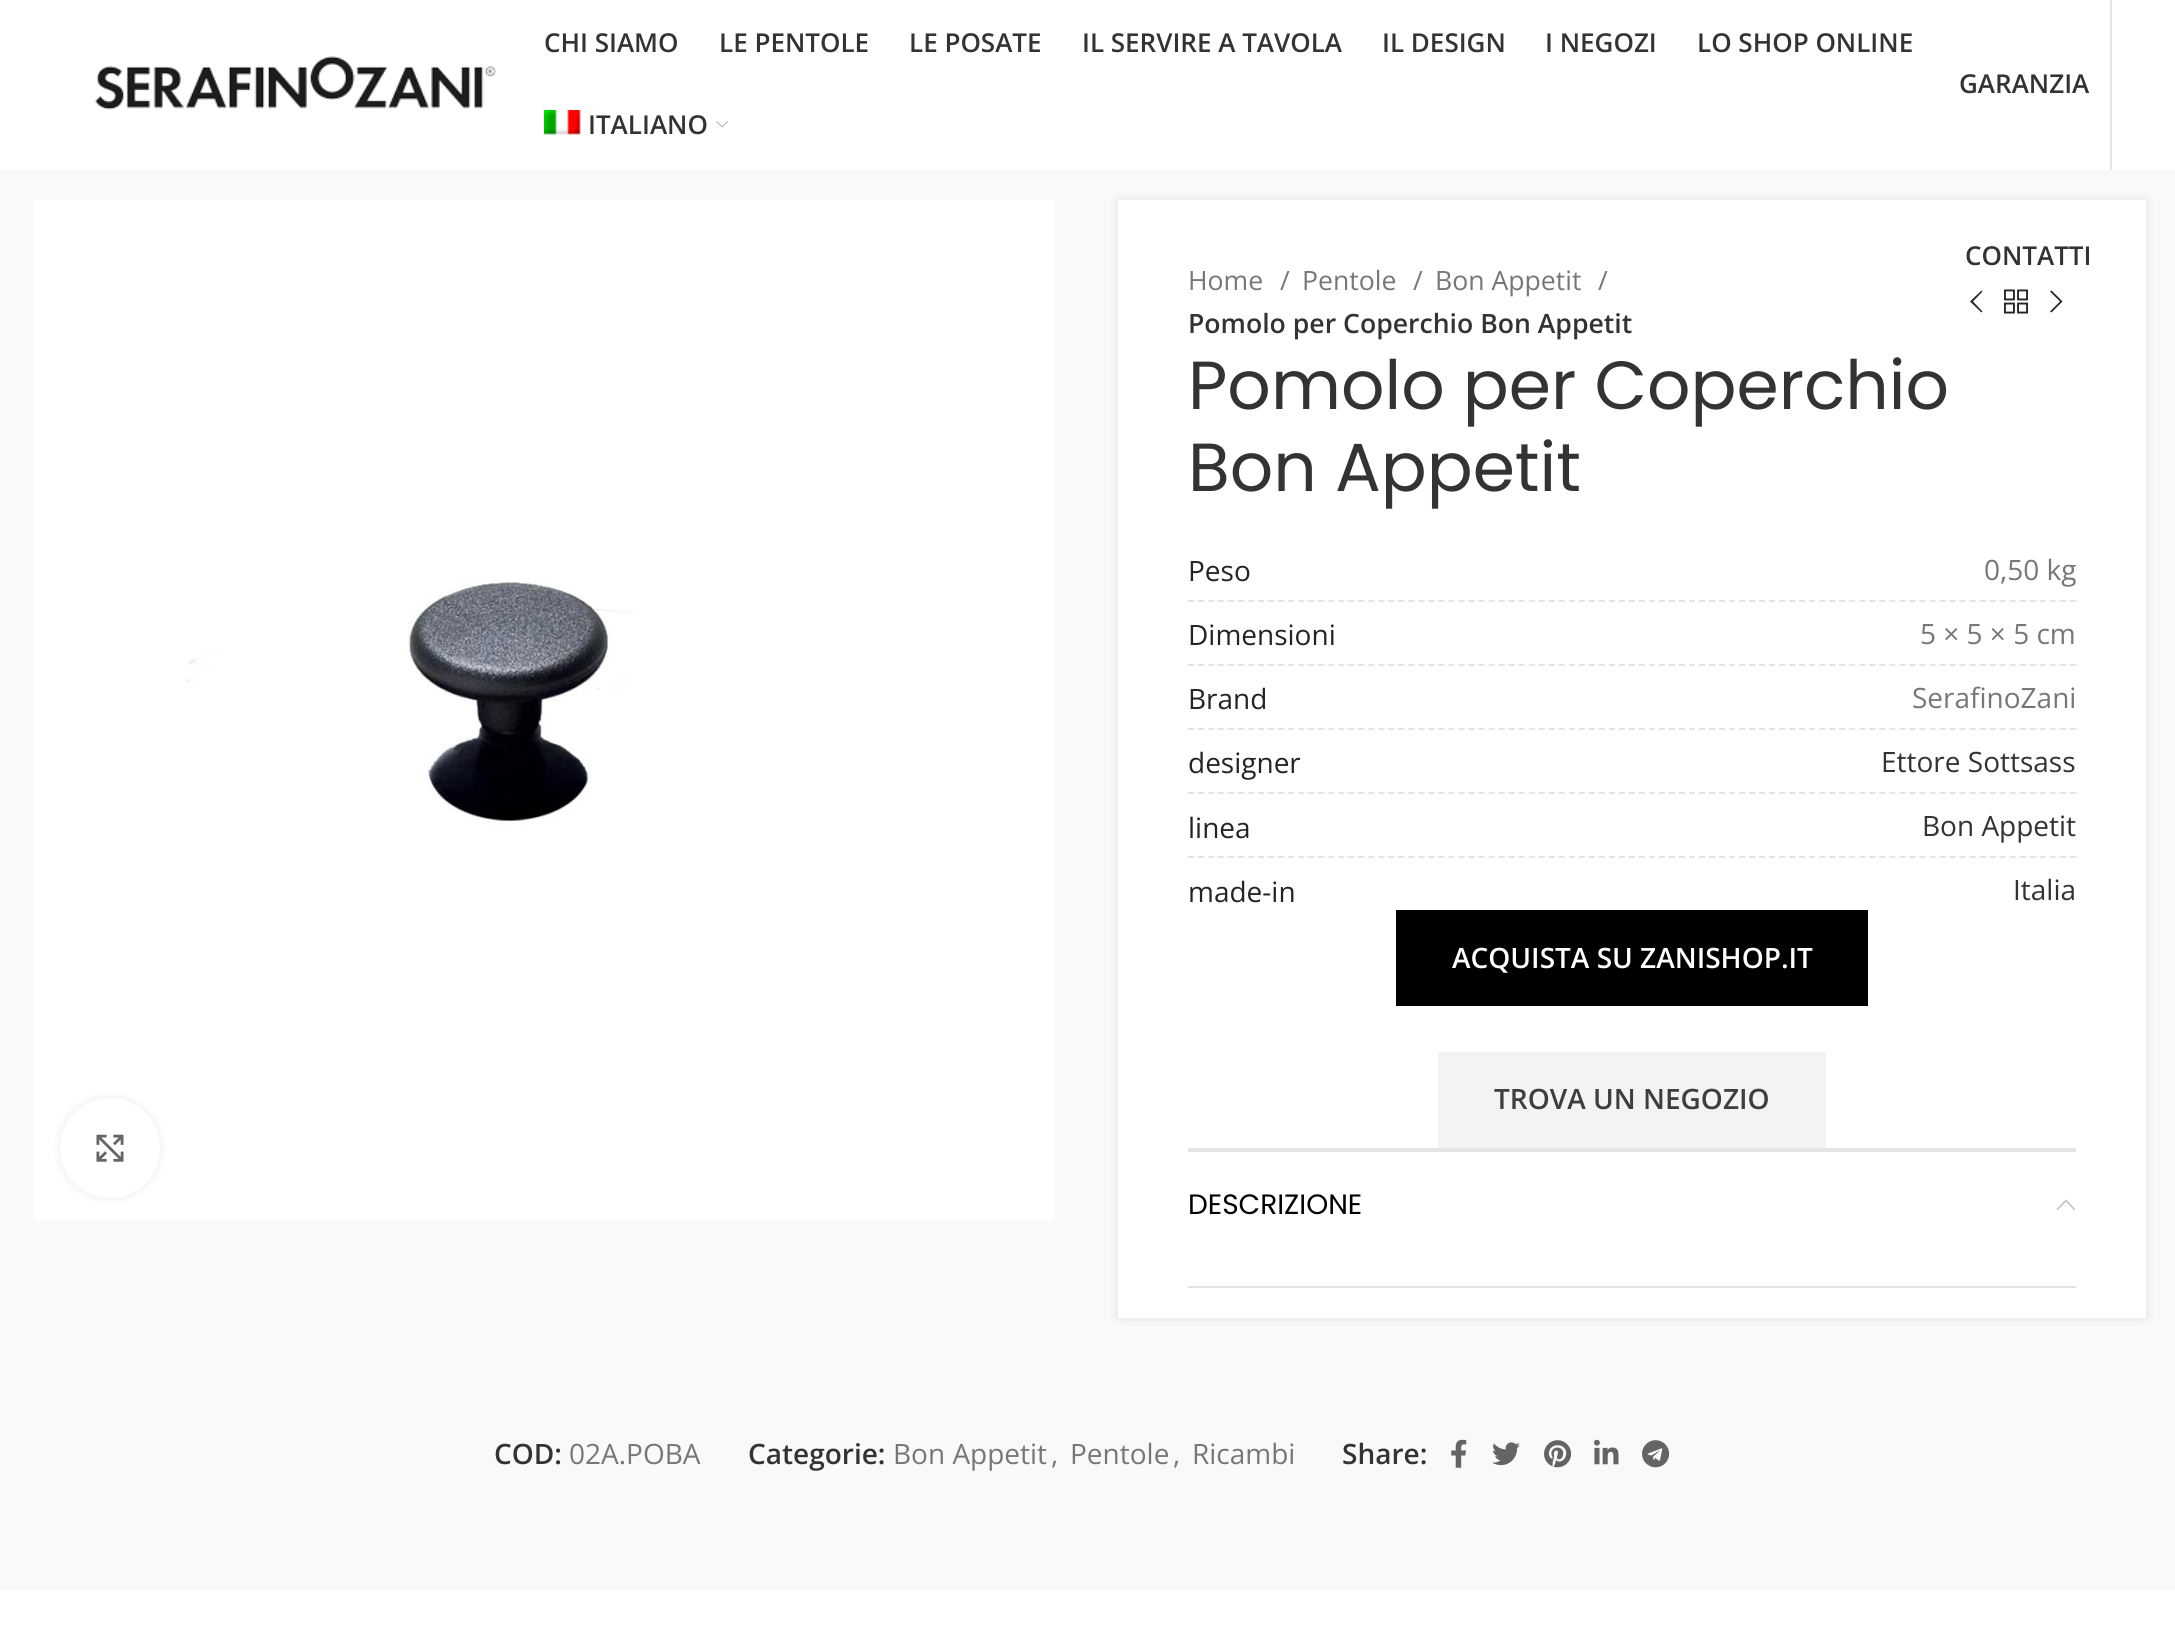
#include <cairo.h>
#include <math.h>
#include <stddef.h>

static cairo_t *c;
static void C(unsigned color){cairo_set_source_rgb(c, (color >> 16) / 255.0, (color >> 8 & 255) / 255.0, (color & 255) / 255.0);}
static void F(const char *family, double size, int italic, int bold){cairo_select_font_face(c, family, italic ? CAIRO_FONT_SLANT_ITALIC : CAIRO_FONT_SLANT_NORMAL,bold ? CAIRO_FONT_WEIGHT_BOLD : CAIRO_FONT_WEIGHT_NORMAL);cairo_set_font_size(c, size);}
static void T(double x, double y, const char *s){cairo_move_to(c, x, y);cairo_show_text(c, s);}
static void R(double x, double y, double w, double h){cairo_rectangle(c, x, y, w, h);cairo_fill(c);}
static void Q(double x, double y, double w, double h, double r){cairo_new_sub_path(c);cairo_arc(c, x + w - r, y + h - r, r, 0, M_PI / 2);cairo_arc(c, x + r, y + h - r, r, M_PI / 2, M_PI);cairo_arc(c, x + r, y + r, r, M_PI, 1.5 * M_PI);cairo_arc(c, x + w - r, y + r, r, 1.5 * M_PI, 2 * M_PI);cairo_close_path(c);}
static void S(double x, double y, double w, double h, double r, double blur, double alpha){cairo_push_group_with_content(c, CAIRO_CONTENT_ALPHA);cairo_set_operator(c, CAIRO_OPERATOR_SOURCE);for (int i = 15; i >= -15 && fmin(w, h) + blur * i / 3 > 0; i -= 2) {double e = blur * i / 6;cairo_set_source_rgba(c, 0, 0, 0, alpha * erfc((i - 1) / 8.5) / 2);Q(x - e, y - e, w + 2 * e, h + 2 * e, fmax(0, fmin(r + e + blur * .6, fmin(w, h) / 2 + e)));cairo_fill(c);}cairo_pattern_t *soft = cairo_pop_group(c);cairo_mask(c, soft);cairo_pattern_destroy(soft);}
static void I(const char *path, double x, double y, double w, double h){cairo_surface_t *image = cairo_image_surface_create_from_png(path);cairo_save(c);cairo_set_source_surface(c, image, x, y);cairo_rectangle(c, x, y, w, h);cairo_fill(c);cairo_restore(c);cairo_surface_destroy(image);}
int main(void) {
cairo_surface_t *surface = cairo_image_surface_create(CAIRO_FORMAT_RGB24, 2175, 1626);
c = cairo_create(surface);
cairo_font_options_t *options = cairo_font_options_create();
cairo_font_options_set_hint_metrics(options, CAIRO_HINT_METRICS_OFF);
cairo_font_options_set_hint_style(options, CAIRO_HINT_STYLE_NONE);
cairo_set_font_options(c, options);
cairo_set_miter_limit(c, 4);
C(0xffffff);
cairo_paint(c);
I("1.png",95,56,401,54);
F("Open Sans SemiBold",26,0,0);
C(0x333333);
T(544,52,"CHI SIAMO");
T(719,52,"LE PENTOLE");
T(909,52,"LE POSATE");
T(1082,52,"IL SERVIRE A TAVOLA");
T(1382,52,"IL DESIGN");
T(1545,52,"I NEGOZI");
T(1697,52,"LO SHOP ONLINE");
I("2.png",544,110,37,25);
T(588,134,"ITALIANO");
I("3.png",716,121,12,7);
T(1959,93,"GARANZIA");
C(0xe4e4e4);
R(2110,0,2,170);
C(0xf9f9f9);
R(0,170,2175,1420);
C(0x000000);
S(1118,200,1028,1118,0,5,.1);
C(0xffffff);
R(1118,200,1028,1118);
C(0x333333);
T(1965,265,"CONTATTI");
I("4.png",34,200,1020,1020);
C(0x000000);
S(60,1098,100,100,50,5,.08);
C(0xffffff);
cairo_arc(c,110,1148,50,0,2 * M_PI);
cairo_fill(c);
I("5.png",96,1134,28,28);
F("Open Sans",26.6,0,0);
C(0x777777);
T(1188,290,"Home");
T(1280,290,"/");
T(1302,290,"Pentole");
T(1413,290,"/");
T(1435,290,"Bon Appetit");
T(1598,290,"/");
F("Open Sans SemiBold",26.6,0,0);
C(0x333333);
T(1188,333,"Pomolo per Coperchio Bon Appetit");
C(0x242424);
cairo_new_path(c);
cairo_move_to(c,1982.5,291.5);
cairo_line_to(c,1981.5,290.5);
cairo_line_to(c,1970,301.5);
cairo_line_to(c,1981.5,312.5);
cairo_line_to(c,1982.5,311.5);
cairo_line_to(c,1973,301.5);
cairo_close_path(c);
cairo_fill(c);
I("6.png",2004,289,24,25);
cairo_new_path(c);
cairo_move_to(c,2050,291.5);
cairo_line_to(c,2060,301.5);
cairo_line_to(c,2050,311.5);
cairo_line_to(c,2051.5,312.5);
cairo_line_to(c,2062.5,301.5);
cairo_line_to(c,2051.5,290.5);
cairo_close_path(c);
cairo_fill(c);
F("Poppins",68,0,0);
C(0x333333);
T(1188,409,"Pomolo per Coperchio");
T(1188,491,"Bon Appetit");
cairo_new_path(c);
cairo_move_to(c,1188,601);
cairo_line_to(c,2076,601);
C(0xe4e4e4);
cairo_set_dash(c,(double[]){6,4.02},2,0);
cairo_stroke(c);
F("Open Sans",28,0,0);
C(0x242424);
T(1188,581,"Peso");
C(0x777777);
T(1984,580,"0,50 kg");
cairo_new_path(c);
cairo_move_to(c,1188,665);
cairo_line_to(c,2076,665);
C(0xe4e4e4);
cairo_stroke(c);
C(0x242424);
T(1188,645,"Dimensioni");
C(0x777777);
T(1920,644,"5 × 5 × 5 cm");
cairo_new_path(c);
cairo_move_to(c,1188,729);
cairo_line_to(c,2076,729);
C(0xe4e4e4);
cairo_stroke(c);
C(0x242424);
T(1188,709,"Brand");
C(0x777777);
T(1912,708,"SerafinoZani");
cairo_new_path(c);
cairo_move_to(c,1188,793);
cairo_line_to(c,2076,793);
C(0xe4e4e4);
cairo_stroke(c);
C(0x242424);
T(1188,773,"designer");
C(0x333333);
T(1881,772,"Ettore Sottsass");
cairo_new_path(c);
cairo_move_to(c,1188,857);
cairo_line_to(c,2076,857);
C(0xe4e4e4);
cairo_stroke(c);
C(0x242424);
T(1188,838,"linea");
C(0x333333);
T(1922,836,"Bon Appetit");
C(0x242424);
T(1188,902,"made-in");
C(0x333333);
T(2013,900,"Italia");
C(0x000000);
R(1396,910,472,96);
F("Open Sans SemiBold",28,0,0);
C(0xffffff);
T(1452,968,"ACQUISTA SU ZANISHOP.IT");
C(0xf3f3f3);
R(1438,1052,388,96);
C(0x3e3e3e);
T(1494,1109,"TROVA UN NEGOZIO");
C(0xe4e4e4);
R(1188,1148,888,4);
R(1188,1286,888,2);
F("Poppins",28,0,0);
C(0x000000);
T(1188,1214,"DESCRIZIONE");
C(0xbbbbbb);
cairo_new_path(c);
cairo_move_to(c,2057.5,1210);
cairo_line_to(c,2066,1201.5);
cairo_line_to(c,2074,1210);
cairo_line_to(c,2075,1209);
cairo_line_to(c,2066,1199.5);
cairo_line_to(c,2056.5,1209);
cairo_close_path(c);
cairo_fill(c);
F("Open Sans SemiBold",28,0,0);
C(0x333333);
T(494,1464,"COD:");
F("Open Sans",28,0,0);
C(0x777777);
T(569,1464,"02A.POBA");
F("Open Sans SemiBold",28,0,0);
C(0x333333);
T(748,1464,"Categorie:");
F("Open Sans",28,0,0);
C(0x777777);
T(893,1464,"Bon Appetit");
T(1051,1464,",");
T(1070,1464,"Pentole");
T(1173,1464,",");
T(1192,1464,"Ricambi");
F("Open Sans SemiBold",28,0,0);
C(0x333333);
T(1342,1464,"Share:");
I("7.png",1451,1439,16,29);
I("8.png",1492,1442,28,24);
I("9.png",1544,1440,28,28);
I("10.png",1594,1439,25,26);
I("11.png",1642,1440,28,28);
cairo_surface_write_to_png(surface, "o.png");
cairo_font_options_destroy(options);
cairo_destroy(c);
cairo_surface_destroy(surface);
return 0;
}
